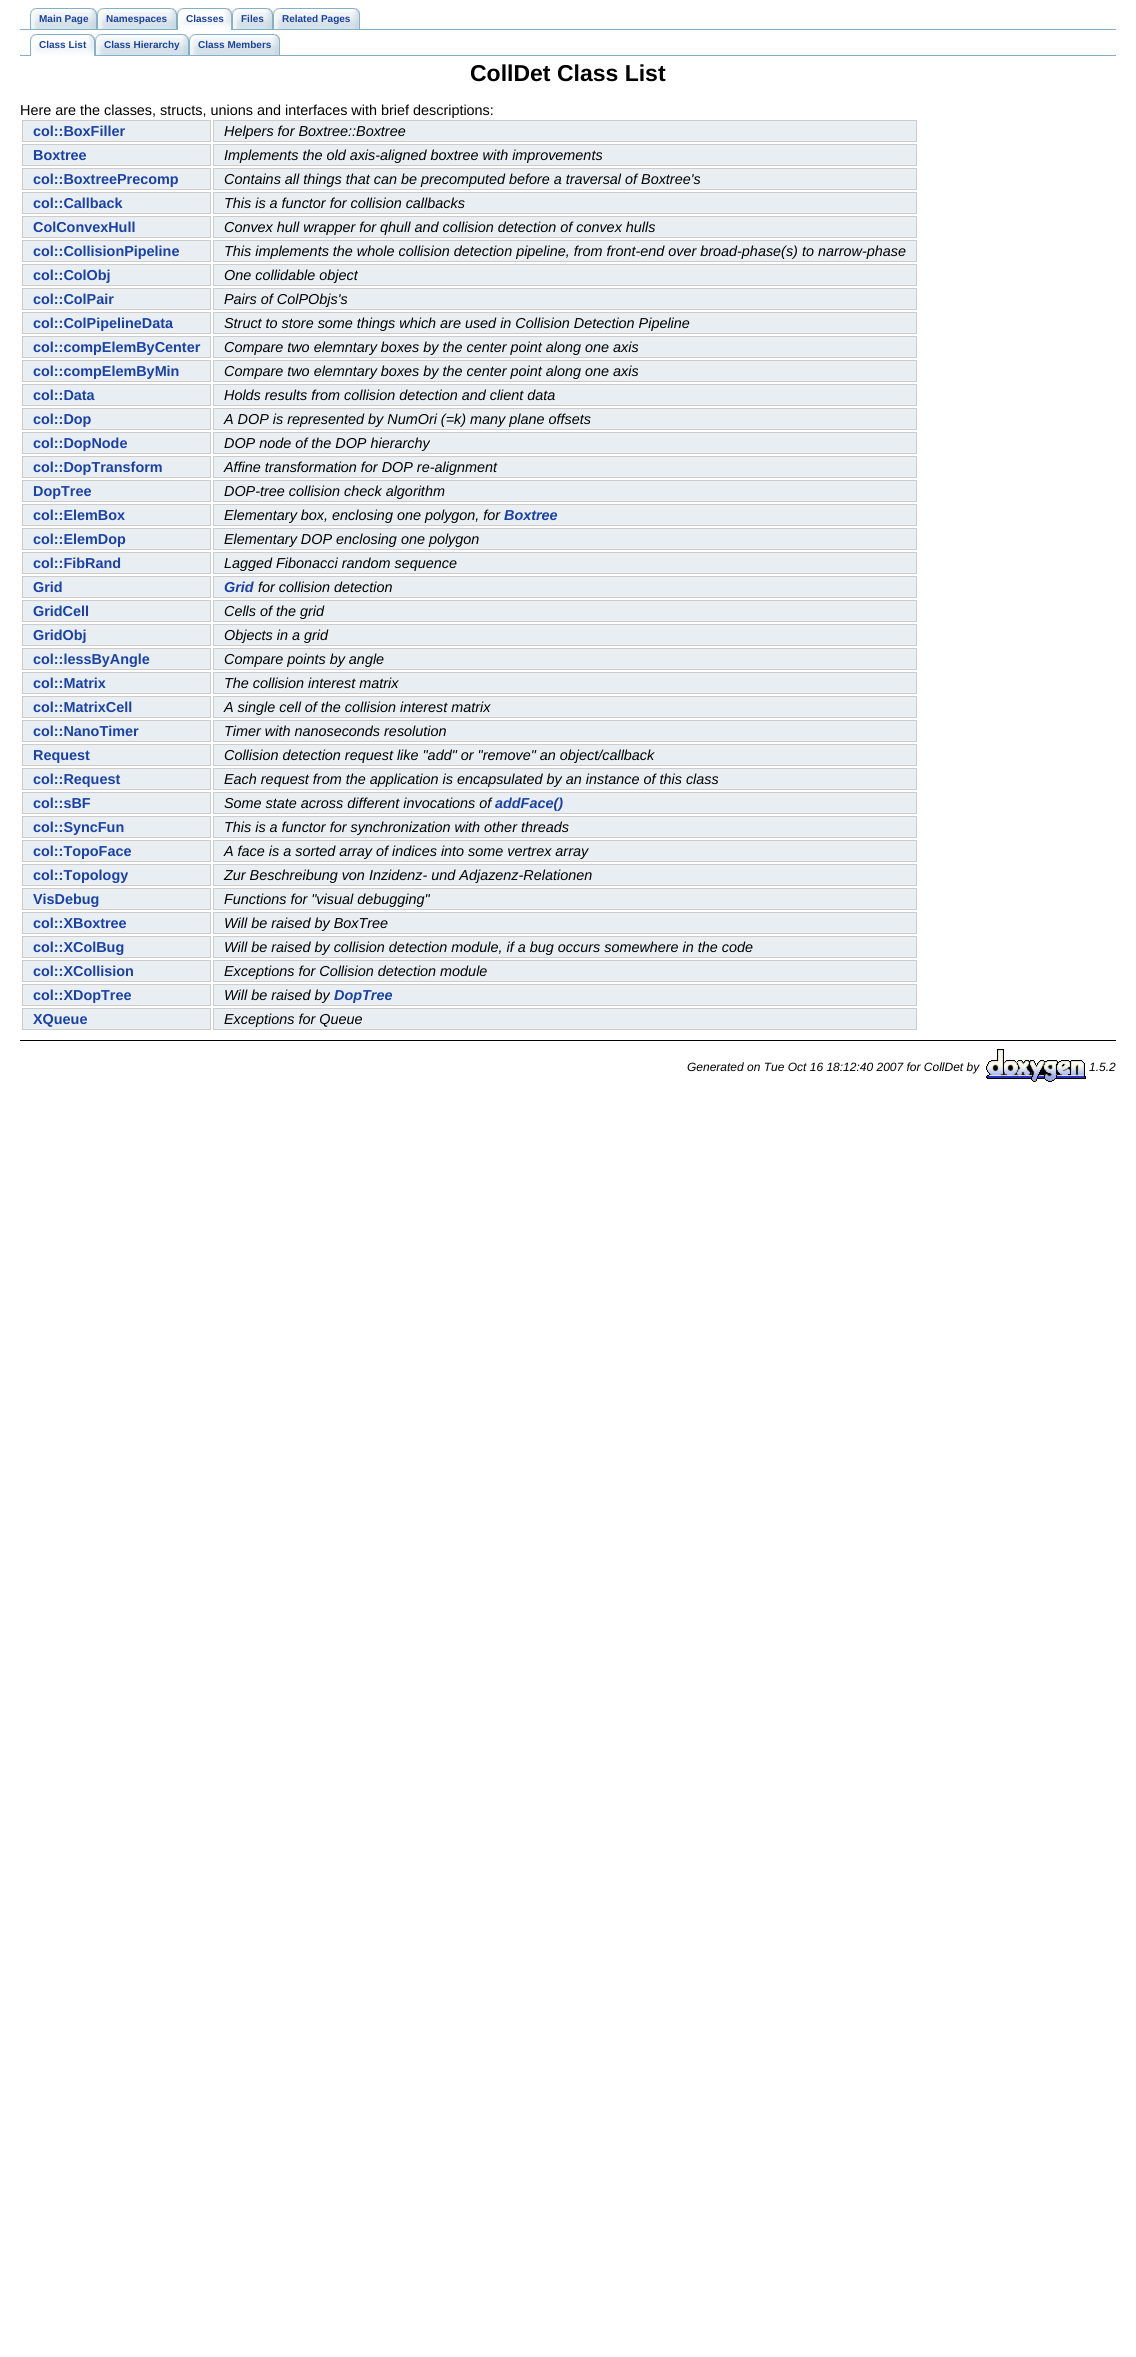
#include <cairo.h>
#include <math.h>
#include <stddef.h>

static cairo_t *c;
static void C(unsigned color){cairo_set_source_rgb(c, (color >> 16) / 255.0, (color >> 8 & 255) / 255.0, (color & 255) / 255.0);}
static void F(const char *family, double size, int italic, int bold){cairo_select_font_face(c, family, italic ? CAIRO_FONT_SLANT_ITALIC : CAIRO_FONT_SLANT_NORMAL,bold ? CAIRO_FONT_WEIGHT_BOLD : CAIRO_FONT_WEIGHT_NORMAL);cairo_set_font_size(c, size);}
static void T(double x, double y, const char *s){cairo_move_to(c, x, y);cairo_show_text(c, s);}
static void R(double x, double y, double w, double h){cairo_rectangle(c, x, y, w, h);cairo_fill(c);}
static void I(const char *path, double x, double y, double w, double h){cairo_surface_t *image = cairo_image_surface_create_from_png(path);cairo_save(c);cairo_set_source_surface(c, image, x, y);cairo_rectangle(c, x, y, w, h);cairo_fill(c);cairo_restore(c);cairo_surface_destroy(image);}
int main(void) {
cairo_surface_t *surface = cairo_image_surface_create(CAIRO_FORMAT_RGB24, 1136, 2357);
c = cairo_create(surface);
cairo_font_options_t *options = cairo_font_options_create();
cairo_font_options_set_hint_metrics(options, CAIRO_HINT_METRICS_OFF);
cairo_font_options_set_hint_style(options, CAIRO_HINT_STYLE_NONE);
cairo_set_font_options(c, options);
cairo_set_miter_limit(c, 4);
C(0xffffff);
cairo_paint(c);
C(0x84b0c7);
R(20,29,1096,1);
I("1.png",39,8,58,21);
I("2.png",30,8,9,21);
F("Liberation Sans",10,0,1);
C(0x1a419d);
T(39,22,"Main Page");
I("3.png",106,8,71,21);
I("2.png",97,8,9,21);
T(106,22,"Namespaces");
I("4.png",184,8,48,22);
I("5.png",177,8,7,22);
T(186,22,"Classes");
I("6.png",241,8,32,21);
I("2.png",232,8,9,21);
T(241,22,"Files");
I("7.png",282,8,78,21);
I("2.png",273,8,9,21);
T(282,22,"Related Pages");
C(0x84b0c7);
R(20,55,1096,1);
I("8.png",37,34,58,22);
I("5.png",30,34,7,22);
C(0x1a419d);
T(39,48,"Class List");
I("9.png",104,34,85,21);
I("2.png",95,34,9,21);
T(104,48,"Class Hierarchy");
I("10.png",198,34,82,21);
I("2.png",189,34,9,21);
T(198,48,"Class Members");
F("Liberation Sans",23,0,1);
C(0x000000);
T(470,81,"CollDet Class List");
F("Liberation Sans",14.4,0,0);
T(20,115,"Here are the classes, structs, unions and interfaces with brief descriptions:");
C(0xe8eef2);
cairo_rectangle(c,22.5,120.5,188,21);
cairo_fill_preserve(c);
C(0xcccccc);
cairo_set_line_width(c,1);
cairo_stroke(c);
F("Liberation Sans",14.4,0,1);
C(0x1a41a8);
T(33,136,"col::BoxFiller");
C(0xe8eef2);
cairo_rectangle(c,213.5,120.5,703,21);
cairo_fill_preserve(c);
C(0xcccccc);
cairo_stroke(c);
F("Liberation Sans",14.4,1,0);
C(0x000000);
T(224,136,"Helpers for Boxtree::Boxtree");
C(0xe8eef2);
cairo_rectangle(c,22.5,144.5,188,21);
cairo_fill_preserve(c);
C(0xcccccc);
cairo_stroke(c);
F("Liberation Sans",14.4,0,1);
C(0x1a41a8);
T(33,160,"Boxtree");
C(0xe8eef2);
cairo_rectangle(c,213.5,144.5,703,21);
cairo_fill_preserve(c);
C(0xcccccc);
cairo_stroke(c);
F("Liberation Sans",14.4,1,0);
C(0x000000);
T(224,160,"Implements the old axis-aligned boxtree with improvements");
C(0xe8eef2);
cairo_rectangle(c,22.5,168.5,188,21);
cairo_fill_preserve(c);
C(0xcccccc);
cairo_stroke(c);
F("Liberation Sans",14.4,0,1);
C(0x1a41a8);
T(33,184,"col::BoxtreePrecomp");
C(0xe8eef2);
cairo_rectangle(c,213.5,168.5,703,21);
cairo_fill_preserve(c);
C(0xcccccc);
cairo_stroke(c);
F("Liberation Sans",14.4,1,0);
C(0x000000);
T(224,184,"Contains all things that can be precomputed before a traversal of Boxtree's");
C(0xe8eef2);
cairo_rectangle(c,22.5,192.5,188,21);
cairo_fill_preserve(c);
C(0xcccccc);
cairo_stroke(c);
F("Liberation Sans",14.4,0,1);
C(0x1a41a8);
T(33,208,"col::Callback");
C(0xe8eef2);
cairo_rectangle(c,213.5,192.5,703,21);
cairo_fill_preserve(c);
C(0xcccccc);
cairo_stroke(c);
F("Liberation Sans",14.4,1,0);
C(0x000000);
T(224,208,"This is a functor for collision callbacks");
C(0xe8eef2);
cairo_rectangle(c,22.5,216.5,188,21);
cairo_fill_preserve(c);
C(0xcccccc);
cairo_stroke(c);
F("Liberation Sans",14.4,0,1);
C(0x1a41a8);
T(33,232,"ColConvexHull");
C(0xe8eef2);
cairo_rectangle(c,213.5,216.5,703,21);
cairo_fill_preserve(c);
C(0xcccccc);
cairo_stroke(c);
F("Liberation Sans",14.4,1,0);
C(0x000000);
T(224,232,"Convex hull wrapper for qhull and collision detection of convex hulls");
C(0xe8eef2);
cairo_rectangle(c,22.5,240.5,188,21);
cairo_fill_preserve(c);
C(0xcccccc);
cairo_stroke(c);
F("Liberation Sans",14.4,0,1);
C(0x1a41a8);
T(33,256,"col::CollisionPipeline");
C(0xe8eef2);
cairo_rectangle(c,213.5,240.5,703,21);
cairo_fill_preserve(c);
C(0xcccccc);
cairo_stroke(c);
F("Liberation Sans",14.4,1,0);
C(0x000000);
T(224,256,"This implements the whole collision detection pipeline, from front-end over broad-phase(s) to narrow-phase");
C(0xe8eef2);
cairo_rectangle(c,22.5,264.5,188,21);
cairo_fill_preserve(c);
C(0xcccccc);
cairo_stroke(c);
F("Liberation Sans",14.4,0,1);
C(0x1a41a8);
T(33,280,"col::ColObj");
C(0xe8eef2);
cairo_rectangle(c,213.5,264.5,703,21);
cairo_fill_preserve(c);
C(0xcccccc);
cairo_stroke(c);
F("Liberation Sans",14.4,1,0);
C(0x000000);
T(224,280,"One collidable object");
C(0xe8eef2);
cairo_rectangle(c,22.5,288.5,188,21);
cairo_fill_preserve(c);
C(0xcccccc);
cairo_stroke(c);
F("Liberation Sans",14.4,0,1);
C(0x1a41a8);
T(33,304,"col::ColPair");
C(0xe8eef2);
cairo_rectangle(c,213.5,288.5,703,21);
cairo_fill_preserve(c);
C(0xcccccc);
cairo_stroke(c);
F("Liberation Sans",14.4,1,0);
C(0x000000);
T(224,304,"Pairs of ColPObjs's");
C(0xe8eef2);
cairo_rectangle(c,22.5,312.5,188,21);
cairo_fill_preserve(c);
C(0xcccccc);
cairo_stroke(c);
F("Liberation Sans",14.4,0,1);
C(0x1a41a8);
T(33,328,"col::ColPipelineData");
C(0xe8eef2);
cairo_rectangle(c,213.5,312.5,703,21);
cairo_fill_preserve(c);
C(0xcccccc);
cairo_stroke(c);
F("Liberation Sans",14.4,1,0);
C(0x000000);
T(224,328,"Struct to store some things which are used in Collision Detection Pipeline");
C(0xe8eef2);
cairo_rectangle(c,22.5,336.5,188,21);
cairo_fill_preserve(c);
C(0xcccccc);
cairo_stroke(c);
F("Liberation Sans",14.4,0,1);
C(0x1a41a8);
T(33,352,"col::compElemByCenter");
C(0xe8eef2);
cairo_rectangle(c,213.5,336.5,703,21);
cairo_fill_preserve(c);
C(0xcccccc);
cairo_stroke(c);
F("Liberation Sans",14.4,1,0);
C(0x000000);
T(224,352,"Compare two elemntary boxes by the center point along one axis");
C(0xe8eef2);
cairo_rectangle(c,22.5,360.5,188,21);
cairo_fill_preserve(c);
C(0xcccccc);
cairo_stroke(c);
F("Liberation Sans",14.4,0,1);
C(0x1a41a8);
T(33,376,"col::compElemByMin");
C(0xe8eef2);
cairo_rectangle(c,213.5,360.5,703,21);
cairo_fill_preserve(c);
C(0xcccccc);
cairo_stroke(c);
F("Liberation Sans",14.4,1,0);
C(0x000000);
T(224,376,"Compare two elemntary boxes by the center point along one axis");
C(0xe8eef2);
cairo_rectangle(c,22.5,384.5,188,21);
cairo_fill_preserve(c);
C(0xcccccc);
cairo_stroke(c);
F("Liberation Sans",14.4,0,1);
C(0x1a41a8);
T(33,400,"col::Data");
C(0xe8eef2);
cairo_rectangle(c,213.5,384.5,703,21);
cairo_fill_preserve(c);
C(0xcccccc);
cairo_stroke(c);
F("Liberation Sans",14.4,1,0);
C(0x000000);
T(224,400,"Holds results from collision detection and client data");
C(0xe8eef2);
cairo_rectangle(c,22.5,408.5,188,21);
cairo_fill_preserve(c);
C(0xcccccc);
cairo_stroke(c);
F("Liberation Sans",14.4,0,1);
C(0x1a41a8);
T(33,424,"col::Dop");
C(0xe8eef2);
cairo_rectangle(c,213.5,408.5,703,21);
cairo_fill_preserve(c);
C(0xcccccc);
cairo_stroke(c);
F("Liberation Sans",14.4,1,0);
C(0x000000);
T(224,424,"A DOP is represented by NumOri (=k) many plane offsets");
C(0xe8eef2);
cairo_rectangle(c,22.5,432.5,188,21);
cairo_fill_preserve(c);
C(0xcccccc);
cairo_stroke(c);
F("Liberation Sans",14.4,0,1);
C(0x1a41a8);
T(33,448,"col::DopNode");
C(0xe8eef2);
cairo_rectangle(c,213.5,432.5,703,21);
cairo_fill_preserve(c);
C(0xcccccc);
cairo_stroke(c);
F("Liberation Sans",14.4,1,0);
C(0x000000);
T(224,448,"DOP node of the DOP hierarchy");
C(0xe8eef2);
cairo_rectangle(c,22.5,456.5,188,21);
cairo_fill_preserve(c);
C(0xcccccc);
cairo_stroke(c);
F("Liberation Sans",14.4,0,1);
C(0x1a41a8);
T(33,472,"col::DopTransform");
C(0xe8eef2);
cairo_rectangle(c,213.5,456.5,703,21);
cairo_fill_preserve(c);
C(0xcccccc);
cairo_stroke(c);
F("Liberation Sans",14.4,1,0);
C(0x000000);
T(224,472,"Affine transformation for DOP re-alignment");
C(0xe8eef2);
cairo_rectangle(c,22.5,480.5,188,21);
cairo_fill_preserve(c);
C(0xcccccc);
cairo_stroke(c);
F("Liberation Sans",14.4,0,1);
C(0x1a41a8);
T(33,496,"DopTree");
C(0xe8eef2);
cairo_rectangle(c,213.5,480.5,703,21);
cairo_fill_preserve(c);
C(0xcccccc);
cairo_stroke(c);
F("Liberation Sans",14.4,1,0);
C(0x000000);
T(224,496,"DOP-tree collision check algorithm");
C(0xe8eef2);
cairo_rectangle(c,22.5,504.5,188,21);
cairo_fill_preserve(c);
C(0xcccccc);
cairo_stroke(c);
F("Liberation Sans",14.4,0,1);
C(0x1a41a8);
T(33,520,"col::ElemBox");
C(0xe8eef2);
cairo_rectangle(c,213.5,504.5,703,21);
cairo_fill_preserve(c);
C(0xcccccc);
cairo_stroke(c);
F("Liberation Sans",14.4,1,0);
C(0x000000);
T(224,520,"Elementary box, enclosing one polygon, for");
F("Liberation Sans",14.4,1,1);
C(0x1a41a8);
T(504,520,"Boxtree");
C(0xe8eef2);
cairo_rectangle(c,22.5,528.5,188,21);
cairo_fill_preserve(c);
C(0xcccccc);
cairo_stroke(c);
F("Liberation Sans",14.4,0,1);
C(0x1a41a8);
T(33,544,"col::ElemDop");
C(0xe8eef2);
cairo_rectangle(c,213.5,528.5,703,21);
cairo_fill_preserve(c);
C(0xcccccc);
cairo_stroke(c);
F("Liberation Sans",14.4,1,0);
C(0x000000);
T(224,544,"Elementary DOP enclosing one polygon");
C(0xe8eef2);
cairo_rectangle(c,22.5,552.5,188,21);
cairo_fill_preserve(c);
C(0xcccccc);
cairo_stroke(c);
F("Liberation Sans",14.4,0,1);
C(0x1a41a8);
T(33,568,"col::FibRand");
C(0xe8eef2);
cairo_rectangle(c,213.5,552.5,703,21);
cairo_fill_preserve(c);
C(0xcccccc);
cairo_stroke(c);
F("Liberation Sans",14.4,1,0);
C(0x000000);
T(224,568,"Lagged Fibonacci random sequence");
C(0xe8eef2);
cairo_rectangle(c,22.5,576.5,188,21);
cairo_fill_preserve(c);
C(0xcccccc);
cairo_stroke(c);
F("Liberation Sans",14.4,0,1);
C(0x1a41a8);
T(33,592,"Grid");
C(0xe8eef2);
cairo_rectangle(c,213.5,576.5,703,21);
cairo_fill_preserve(c);
C(0xcccccc);
cairo_stroke(c);
F("Liberation Sans",14.4,1,1);
C(0x1a41a8);
T(224,592,"Grid");
F("Liberation Sans",14.4,1,0);
C(0x000000);
T(258,592,"for collision detection");
C(0xe8eef2);
cairo_rectangle(c,22.5,600.5,188,21);
cairo_fill_preserve(c);
C(0xcccccc);
cairo_stroke(c);
F("Liberation Sans",14.4,0,1);
C(0x1a41a8);
T(33,616,"GridCell");
C(0xe8eef2);
cairo_rectangle(c,213.5,600.5,703,21);
cairo_fill_preserve(c);
C(0xcccccc);
cairo_stroke(c);
F("Liberation Sans",14.4,1,0);
C(0x000000);
T(224,616,"Cells of the grid");
C(0xe8eef2);
cairo_rectangle(c,22.5,624.5,188,21);
cairo_fill_preserve(c);
C(0xcccccc);
cairo_stroke(c);
F("Liberation Sans",14.4,0,1);
C(0x1a41a8);
T(33,640,"GridObj");
C(0xe8eef2);
cairo_rectangle(c,213.5,624.5,703,21);
cairo_fill_preserve(c);
C(0xcccccc);
cairo_stroke(c);
F("Liberation Sans",14.4,1,0);
C(0x000000);
T(224,640,"Objects in a grid");
C(0xe8eef2);
cairo_rectangle(c,22.5,648.5,188,21);
cairo_fill_preserve(c);
C(0xcccccc);
cairo_stroke(c);
F("Liberation Sans",14.4,0,1);
C(0x1a41a8);
T(33,664,"col::lessByAngle");
C(0xe8eef2);
cairo_rectangle(c,213.5,648.5,703,21);
cairo_fill_preserve(c);
C(0xcccccc);
cairo_stroke(c);
F("Liberation Sans",14.4,1,0);
C(0x000000);
T(224,664,"Compare points by angle");
C(0xe8eef2);
cairo_rectangle(c,22.5,672.5,188,21);
cairo_fill_preserve(c);
C(0xcccccc);
cairo_stroke(c);
F("Liberation Sans",14.4,0,1);
C(0x1a41a8);
T(33,688,"col::Matrix");
C(0xe8eef2);
cairo_rectangle(c,213.5,672.5,703,21);
cairo_fill_preserve(c);
C(0xcccccc);
cairo_stroke(c);
F("Liberation Sans",14.4,1,0);
C(0x000000);
T(224,688,"The collision interest matrix");
C(0xe8eef2);
cairo_rectangle(c,22.5,696.5,188,21);
cairo_fill_preserve(c);
C(0xcccccc);
cairo_stroke(c);
F("Liberation Sans",14.4,0,1);
C(0x1a41a8);
T(33,712,"col::MatrixCell");
C(0xe8eef2);
cairo_rectangle(c,213.5,696.5,703,21);
cairo_fill_preserve(c);
C(0xcccccc);
cairo_stroke(c);
F("Liberation Sans",14.4,1,0);
C(0x000000);
T(224,712,"A single cell of the collision interest matrix");
C(0xe8eef2);
cairo_rectangle(c,22.5,720.5,188,21);
cairo_fill_preserve(c);
C(0xcccccc);
cairo_stroke(c);
F("Liberation Sans",14.4,0,1);
C(0x1a41a8);
T(33,736,"col::NanoTimer");
C(0xe8eef2);
cairo_rectangle(c,213.5,720.5,703,21);
cairo_fill_preserve(c);
C(0xcccccc);
cairo_stroke(c);
F("Liberation Sans",14.4,1,0);
C(0x000000);
T(224,736,"Timer with nanoseconds resolution");
C(0xe8eef2);
cairo_rectangle(c,22.5,744.5,188,21);
cairo_fill_preserve(c);
C(0xcccccc);
cairo_stroke(c);
F("Liberation Sans",14.4,0,1);
C(0x1a41a8);
T(33,760,"Request");
C(0xe8eef2);
cairo_rectangle(c,213.5,744.5,703,21);
cairo_fill_preserve(c);
C(0xcccccc);
cairo_stroke(c);
F("Liberation Sans",14.4,1,0);
C(0x000000);
T(224,760,"Collision detection request like \"add\" or \"remove\" an object/callback");
C(0xe8eef2);
cairo_rectangle(c,22.5,768.5,188,21);
cairo_fill_preserve(c);
C(0xcccccc);
cairo_stroke(c);
F("Liberation Sans",14.4,0,1);
C(0x1a41a8);
T(33,784,"col::Request");
C(0xe8eef2);
cairo_rectangle(c,213.5,768.5,703,21);
cairo_fill_preserve(c);
C(0xcccccc);
cairo_stroke(c);
F("Liberation Sans",14.4,1,0);
C(0x000000);
T(224,784,"Each request from the application is encapsulated by an instance of this class");
C(0xe8eef2);
cairo_rectangle(c,22.5,792.5,188,21);
cairo_fill_preserve(c);
C(0xcccccc);
cairo_stroke(c);
F("Liberation Sans",14.4,0,1);
C(0x1a41a8);
T(33,808,"col::sBF");
C(0xe8eef2);
cairo_rectangle(c,213.5,792.5,703,21);
cairo_fill_preserve(c);
C(0xcccccc);
cairo_stroke(c);
F("Liberation Sans",14.4,1,0);
C(0x000000);
T(224,808,"Some state across different invocations of");
F("Liberation Sans",14.4,1,1);
C(0x1a41a8);
T(495,808,"addFace()");
C(0xe8eef2);
cairo_rectangle(c,22.5,816.5,188,21);
cairo_fill_preserve(c);
C(0xcccccc);
cairo_stroke(c);
F("Liberation Sans",14.4,0,1);
C(0x1a41a8);
T(33,832,"col::SyncFun");
C(0xe8eef2);
cairo_rectangle(c,213.5,816.5,703,21);
cairo_fill_preserve(c);
C(0xcccccc);
cairo_stroke(c);
F("Liberation Sans",14.4,1,0);
C(0x000000);
T(224,832,"This is a functor for synchronization with other threads");
C(0xe8eef2);
cairo_rectangle(c,22.5,840.5,188,21);
cairo_fill_preserve(c);
C(0xcccccc);
cairo_stroke(c);
F("Liberation Sans",14.4,0,1);
C(0x1a41a8);
T(33,856,"col::TopoFace");
C(0xe8eef2);
cairo_rectangle(c,213.5,840.5,703,21);
cairo_fill_preserve(c);
C(0xcccccc);
cairo_stroke(c);
F("Liberation Sans",14.4,1,0);
C(0x000000);
T(224,856,"A face is a sorted array of indices into some vertrex array");
C(0xe8eef2);
cairo_rectangle(c,22.5,864.5,188,21);
cairo_fill_preserve(c);
C(0xcccccc);
cairo_stroke(c);
F("Liberation Sans",14.4,0,1);
C(0x1a41a8);
T(33,880,"col::Topology");
C(0xe8eef2);
cairo_rectangle(c,213.5,864.5,703,21);
cairo_fill_preserve(c);
C(0xcccccc);
cairo_stroke(c);
F("Liberation Sans",14.4,1,0);
C(0x000000);
T(224,880,"Zur Beschreibung von Inzidenz- und Adjazenz-Relationen");
C(0xe8eef2);
cairo_rectangle(c,22.5,888.5,188,21);
cairo_fill_preserve(c);
C(0xcccccc);
cairo_stroke(c);
F("Liberation Sans",14.4,0,1);
C(0x1a41a8);
T(33,904,"VisDebug");
C(0xe8eef2);
cairo_rectangle(c,213.5,888.5,703,21);
cairo_fill_preserve(c);
C(0xcccccc);
cairo_stroke(c);
F("Liberation Sans",14.4,1,0);
C(0x000000);
T(224,904,"Functions for \"visual debugging\"");
C(0xe8eef2);
cairo_rectangle(c,22.5,912.5,188,21);
cairo_fill_preserve(c);
C(0xcccccc);
cairo_stroke(c);
F("Liberation Sans",14.4,0,1);
C(0x1a41a8);
T(33,928,"col::XBoxtree");
C(0xe8eef2);
cairo_rectangle(c,213.5,912.5,703,21);
cairo_fill_preserve(c);
C(0xcccccc);
cairo_stroke(c);
F("Liberation Sans",14.4,1,0);
C(0x000000);
T(224,928,"Will be raised by BoxTree");
C(0xe8eef2);
cairo_rectangle(c,22.5,936.5,188,21);
cairo_fill_preserve(c);
C(0xcccccc);
cairo_stroke(c);
F("Liberation Sans",14.4,0,1);
C(0x1a41a8);
T(33,952,"col::XColBug");
C(0xe8eef2);
cairo_rectangle(c,213.5,936.5,703,21);
cairo_fill_preserve(c);
C(0xcccccc);
cairo_stroke(c);
F("Liberation Sans",14.4,1,0);
C(0x000000);
T(224,952,"Will be raised by collision detection module, if a bug occurs somewhere in the code");
C(0xe8eef2);
cairo_rectangle(c,22.5,960.5,188,21);
cairo_fill_preserve(c);
C(0xcccccc);
cairo_stroke(c);
F("Liberation Sans",14.4,0,1);
C(0x1a41a8);
T(33,976,"col::XCollision");
C(0xe8eef2);
cairo_rectangle(c,213.5,960.5,703,21);
cairo_fill_preserve(c);
C(0xcccccc);
cairo_stroke(c);
F("Liberation Sans",14.4,1,0);
C(0x000000);
T(224,976,"Exceptions for Collision detection module");
C(0xe8eef2);
cairo_rectangle(c,22.5,984.5,188,21);
cairo_fill_preserve(c);
C(0xcccccc);
cairo_stroke(c);
F("Liberation Sans",14.4,0,1);
C(0x1a41a8);
T(33,1000,"col::XDopTree");
C(0xe8eef2);
cairo_rectangle(c,213.5,984.5,703,21);
cairo_fill_preserve(c);
C(0xcccccc);
cairo_stroke(c);
F("Liberation Sans",14.4,1,0);
C(0x000000);
T(224,1000,"Will be raised by");
F("Liberation Sans",14.4,1,1);
C(0x1a41a8);
T(334,1000,"DopTree");
C(0xe8eef2);
cairo_rectangle(c,22.5,1008.5,188,21);
cairo_fill_preserve(c);
C(0xcccccc);
cairo_stroke(c);
F("Liberation Sans",14.4,0,1);
C(0x1a41a8);
T(33,1024,"XQueue");
C(0xe8eef2);
cairo_rectangle(c,213.5,1008.5,703,21);
cairo_fill_preserve(c);
C(0xcccccc);
cairo_stroke(c);
F("Liberation Sans",14.4,1,0);
C(0x000000);
T(224,1024,"Exceptions for Queue");
R(20,1040,1096,1);
F("Liberation Sans",12,1,0);
T(687,1071,"Generated on Tue Oct 16 18:12:40 2007 for CollDet by");
I("11.png",986,1049,100,33);
T(1089,1071,"1.5.2");
cairo_surface_write_to_png(surface, "o.png");
cairo_font_options_destroy(options);
cairo_destroy(c);
cairo_surface_destroy(surface);
return 0;
}
